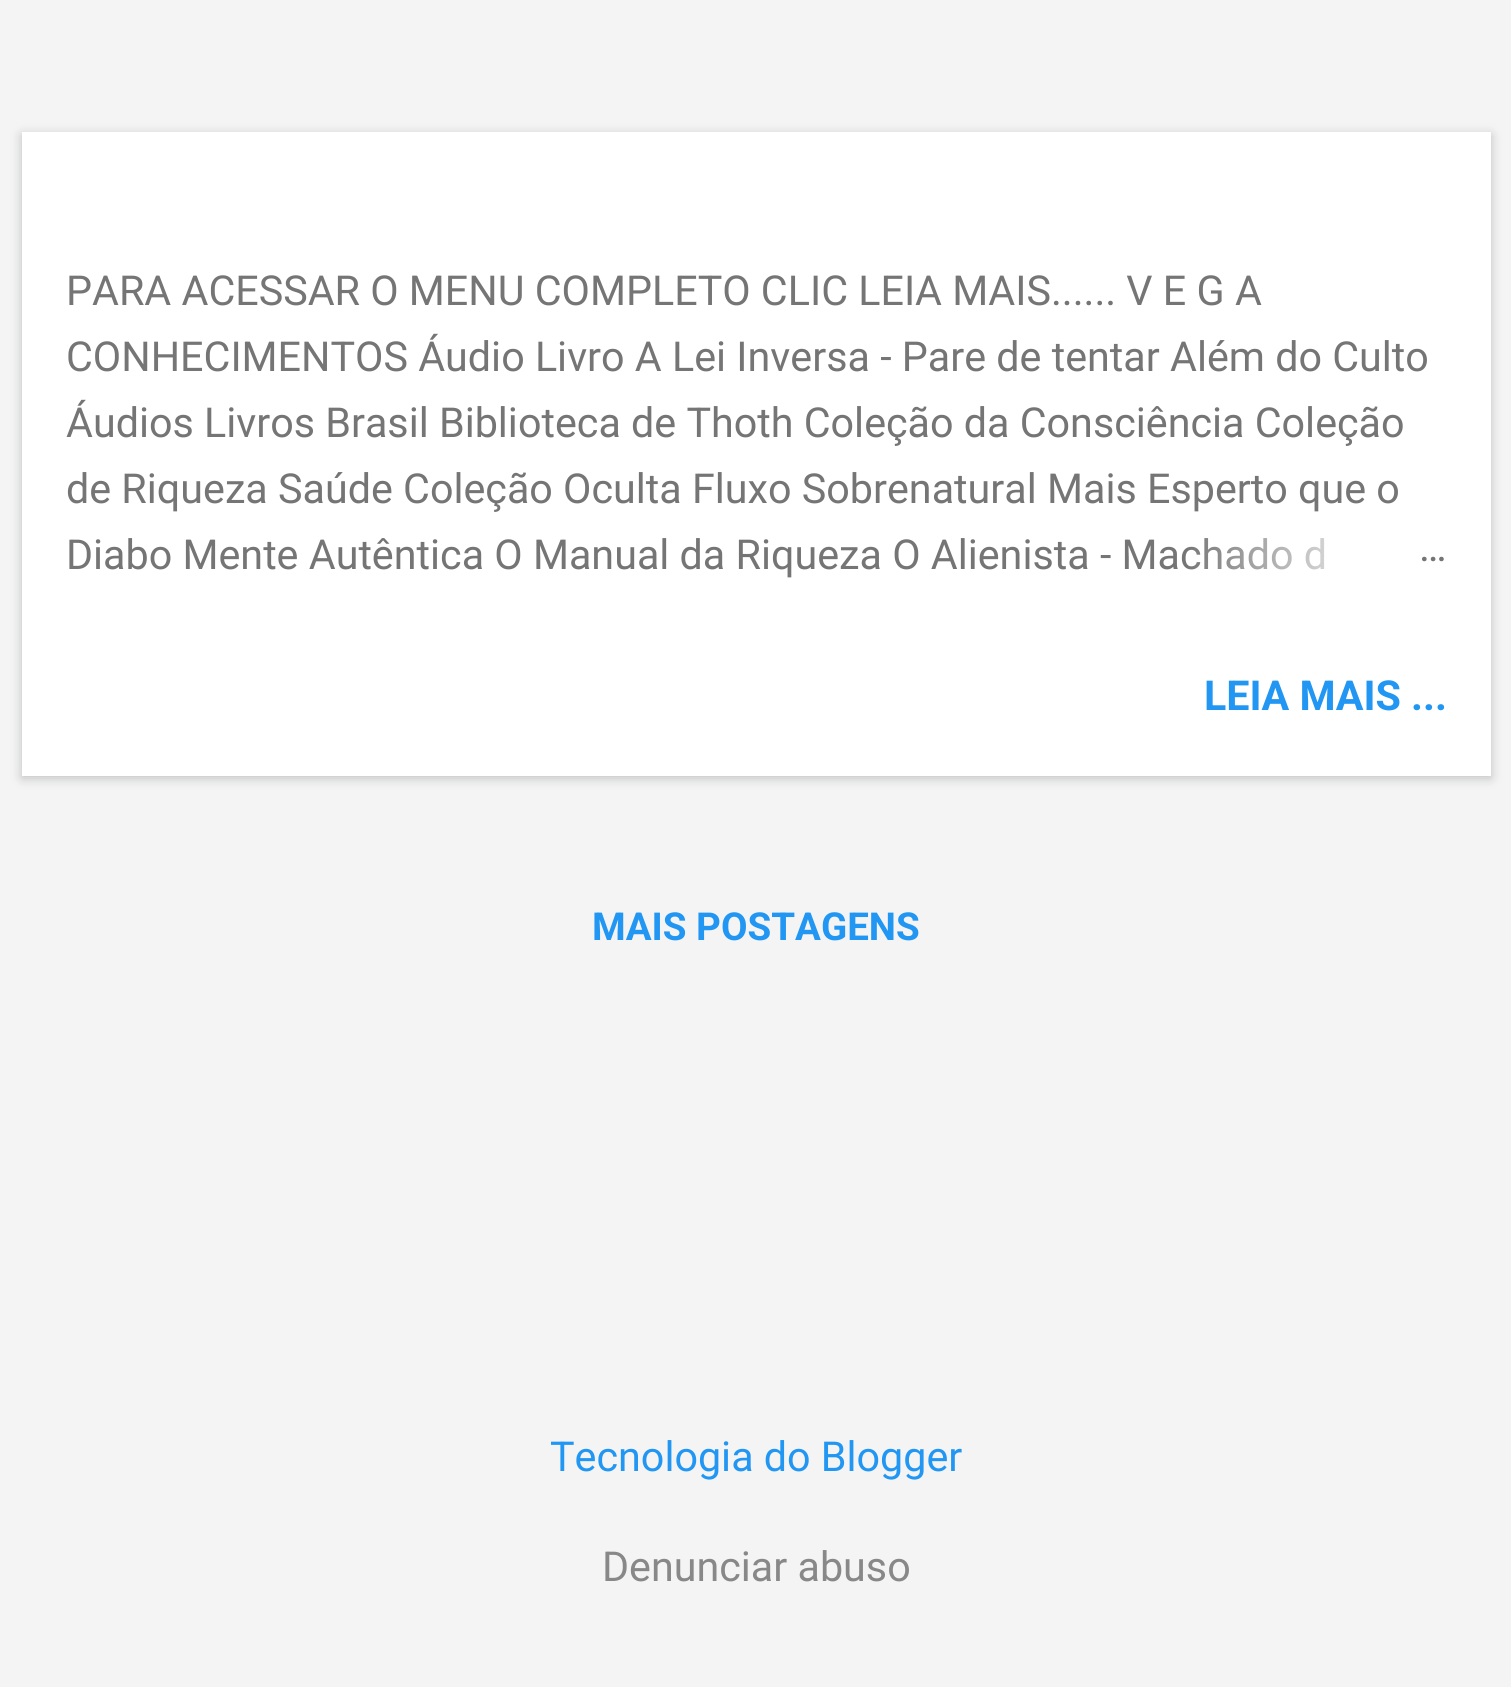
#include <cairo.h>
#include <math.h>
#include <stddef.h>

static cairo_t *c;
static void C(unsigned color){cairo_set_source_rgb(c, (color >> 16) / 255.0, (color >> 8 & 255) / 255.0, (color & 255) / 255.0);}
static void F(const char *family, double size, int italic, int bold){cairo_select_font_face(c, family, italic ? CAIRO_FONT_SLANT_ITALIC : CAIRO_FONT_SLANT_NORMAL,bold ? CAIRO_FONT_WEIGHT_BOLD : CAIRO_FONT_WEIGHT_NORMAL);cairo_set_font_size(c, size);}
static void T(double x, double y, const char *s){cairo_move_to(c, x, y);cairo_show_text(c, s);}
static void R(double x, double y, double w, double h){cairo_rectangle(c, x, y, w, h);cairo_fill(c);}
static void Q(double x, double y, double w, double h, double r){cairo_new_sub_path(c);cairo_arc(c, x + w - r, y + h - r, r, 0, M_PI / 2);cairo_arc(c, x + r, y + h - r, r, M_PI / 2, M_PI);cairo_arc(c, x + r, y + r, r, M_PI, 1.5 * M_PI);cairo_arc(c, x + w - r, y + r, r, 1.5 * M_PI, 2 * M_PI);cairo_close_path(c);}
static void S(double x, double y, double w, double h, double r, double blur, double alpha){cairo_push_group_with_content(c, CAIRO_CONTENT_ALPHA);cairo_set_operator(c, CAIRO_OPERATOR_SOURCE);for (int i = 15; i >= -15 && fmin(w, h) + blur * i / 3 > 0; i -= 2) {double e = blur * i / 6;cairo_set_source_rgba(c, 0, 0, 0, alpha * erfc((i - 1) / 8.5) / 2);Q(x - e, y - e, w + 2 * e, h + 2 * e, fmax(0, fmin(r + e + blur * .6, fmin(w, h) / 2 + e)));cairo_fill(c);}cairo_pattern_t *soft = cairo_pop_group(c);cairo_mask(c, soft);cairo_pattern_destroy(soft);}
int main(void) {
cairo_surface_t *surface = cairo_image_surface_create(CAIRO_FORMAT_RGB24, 1511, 1687);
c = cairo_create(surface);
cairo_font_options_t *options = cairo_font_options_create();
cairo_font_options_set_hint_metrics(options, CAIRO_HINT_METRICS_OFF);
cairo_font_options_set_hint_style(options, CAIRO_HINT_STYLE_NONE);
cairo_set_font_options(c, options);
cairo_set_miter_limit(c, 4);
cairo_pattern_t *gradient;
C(0xf4f4f4);
cairo_paint(c);
C(0x3c4043);
S(22,135,1469,643,0,5.5,.3);
C(0xffffff);
R(22,132,1469,644);
F("Roboto",41.25,0,0);
C(0x757575);
T(66,305,"PARA ACESSAR O MENU COMPLETO CLIC LEIA MAIS...... V E G A");
T(66,371,"CONHECIMENTOS Áudio Livro A Lei Inversa - Pare de tentar Além do Culto");
T(66,437,"Áudios Livros Brasil Biblioteca de Thoth Coleção da Consciência Coleção");
T(66,503,"de Riqueza Saúde Coleção Oculta Fluxo Sobrenatural Mais Esperto que o");
T(66,569,"Diabo Mente Autêntica O Manual da Riqueza O Alienista - Machado d");
gradient = cairo_pattern_create_linear(1447,556,1183,556);
cairo_pattern_add_color_stop_rgba(gradient,0,1,1,1,1);
cairo_pattern_add_color_stop_rgba(gradient,.2,1,1,1,1);
cairo_pattern_add_color_stop_rgba(gradient,1,1,1,1,0);
cairo_set_source(c,gradient);
cairo_pattern_destroy(gradient);
R(1188,538,137,32);
C(0x757575);
T(1419,561,"…");
F("Roboto",41.25,0,1);
C(0x2196f3);
T(1204,710,"LEIA MAIS ...");
F("Roboto",38.5,0,1);
T(592,940,"MAIS POSTAGENS");
F("Roboto",41.25,0,0);
T(550,1471,"Tecnologia do Blogger");
C(0x888888);
T(602,1581,"Denunciar abuso");
cairo_surface_write_to_png(surface, "o.png");
cairo_font_options_destroy(options);
cairo_destroy(c);
cairo_surface_destroy(surface);
return 0;
}
